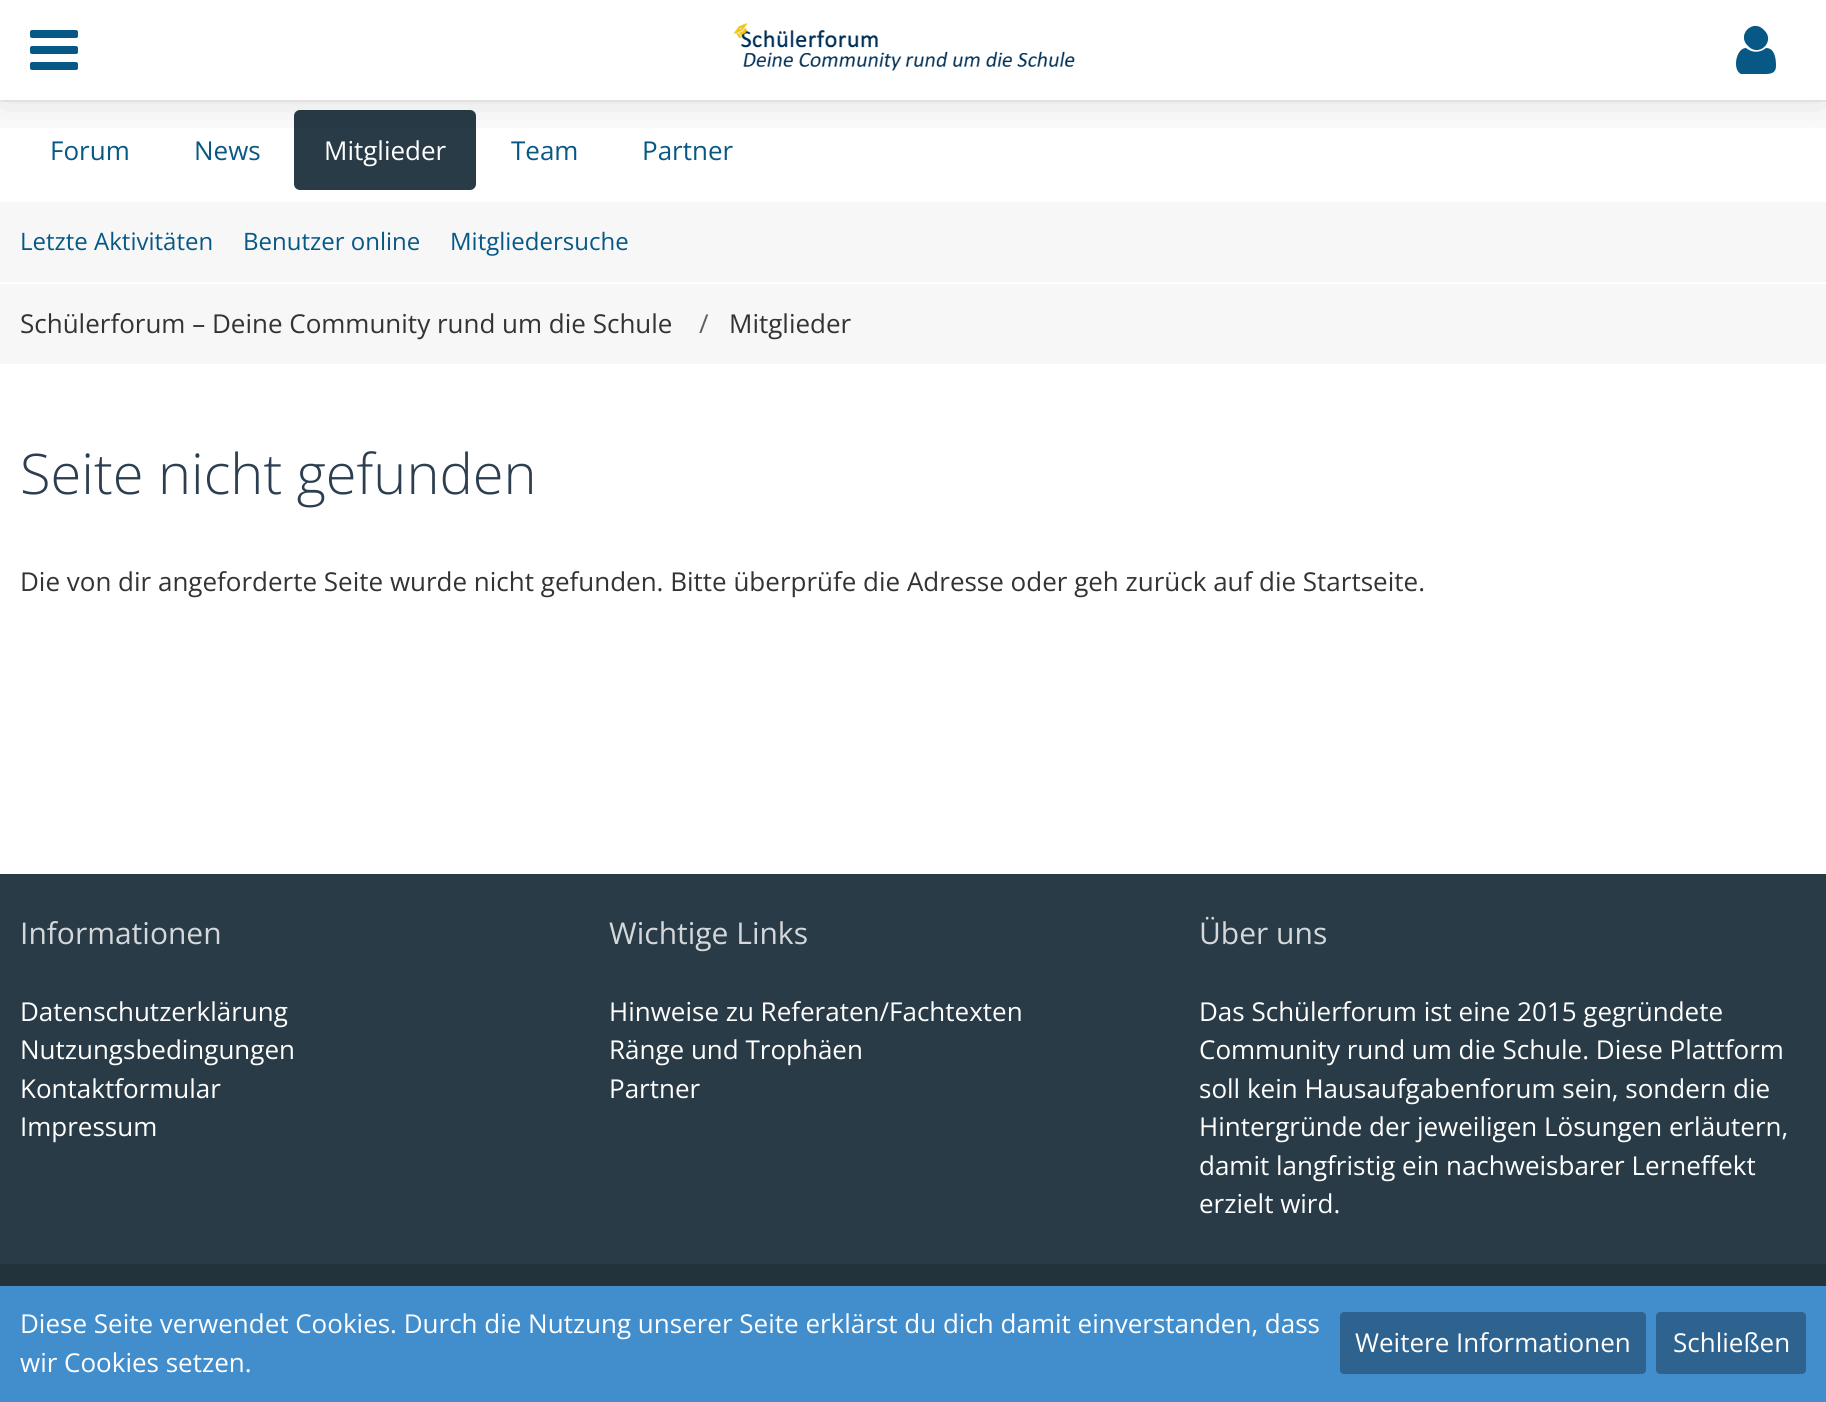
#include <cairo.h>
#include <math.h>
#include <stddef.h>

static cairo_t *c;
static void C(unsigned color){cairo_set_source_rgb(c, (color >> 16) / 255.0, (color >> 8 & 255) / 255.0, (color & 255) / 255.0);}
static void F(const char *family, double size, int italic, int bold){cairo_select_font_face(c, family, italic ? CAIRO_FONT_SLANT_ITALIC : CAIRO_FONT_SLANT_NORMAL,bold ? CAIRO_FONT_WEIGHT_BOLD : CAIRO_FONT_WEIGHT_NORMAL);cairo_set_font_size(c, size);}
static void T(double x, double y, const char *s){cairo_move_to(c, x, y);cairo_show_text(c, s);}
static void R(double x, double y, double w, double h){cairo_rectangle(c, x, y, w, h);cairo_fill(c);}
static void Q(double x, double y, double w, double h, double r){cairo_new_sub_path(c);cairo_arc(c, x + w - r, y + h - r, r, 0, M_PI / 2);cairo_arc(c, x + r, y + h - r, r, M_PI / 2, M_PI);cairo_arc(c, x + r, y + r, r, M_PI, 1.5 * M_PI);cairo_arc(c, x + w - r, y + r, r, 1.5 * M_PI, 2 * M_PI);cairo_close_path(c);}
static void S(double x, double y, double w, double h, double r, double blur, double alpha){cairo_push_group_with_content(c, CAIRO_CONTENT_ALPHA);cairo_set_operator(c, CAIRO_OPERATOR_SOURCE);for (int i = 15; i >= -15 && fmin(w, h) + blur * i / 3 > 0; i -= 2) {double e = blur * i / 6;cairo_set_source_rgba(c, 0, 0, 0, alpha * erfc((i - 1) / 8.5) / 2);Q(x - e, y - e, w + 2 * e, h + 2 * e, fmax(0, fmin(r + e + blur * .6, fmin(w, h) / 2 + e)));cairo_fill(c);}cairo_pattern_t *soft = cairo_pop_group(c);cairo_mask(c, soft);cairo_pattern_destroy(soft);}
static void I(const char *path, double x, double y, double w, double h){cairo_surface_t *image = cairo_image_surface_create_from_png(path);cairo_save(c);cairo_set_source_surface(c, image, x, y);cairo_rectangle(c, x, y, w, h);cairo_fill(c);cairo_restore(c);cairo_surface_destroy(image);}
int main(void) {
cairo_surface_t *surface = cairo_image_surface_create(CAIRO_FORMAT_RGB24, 1826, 1402);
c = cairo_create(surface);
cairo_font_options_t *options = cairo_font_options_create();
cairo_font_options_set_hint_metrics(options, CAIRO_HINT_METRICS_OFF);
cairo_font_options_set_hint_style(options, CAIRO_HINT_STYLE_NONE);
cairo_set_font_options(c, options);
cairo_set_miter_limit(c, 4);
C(0xffffff);
cairo_paint(c);
C(0xf2f2f2);
R(0,100,1826,2);
C(0x283b46);
Q(294,110,182,80,6);
cairo_fill(c);
cairo_save(c);
cairo_rectangle(c,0,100,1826,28);
cairo_clip(c);
C(0x000000);
S(0,0,1826,100,0,25,.15);
cairo_restore(c);
I("1.png",30,30,48,40);
I("2.png",733,23,342,48);
C(0x075885);
cairo_new_path(c);
cairo_move_to(c,1776,66);
cairo_curve_to(c,1776,73,1771,74,1765,74);
cairo_line_to(c,1741,74);
cairo_curve_to(c,1732,70,1736,48,1746,48);
cairo_curve_to(c,1752,53,1760,53,1766,48);
cairo_curve_to(c,1775,48,1776,59,1776,66);
cairo_close_path(c);
cairo_move_to(c,1764,30);
cairo_curve_to(c,1776,41,1759,58,1748,46);
cairo_curve_to(c,1736,35,1753,18,1764,30);
cairo_close_path(c);
cairo_fill(c);
F("Open Sans",26,0,0);
T(50,160,"Forum");
T(194,160,"News");
C(0xffffff);
T(324,160,"Mitglieder");
C(0x075885);
T(511,160,"Team");
T(642,160,"Partner");
C(0xf7f7f8);
R(0,202,1826,80);
F("Open Sans",24,0,0);
C(0x075885);
T(20,250,"Letzte Aktivitäten");
T(243,250,"Benutzer online");
T(450,250,"Mitgliedersuche");
C(0xf7f7f8);
R(0,284,1826,80);
F("Open Sans",26,0,0);
C(0x333333);
T(20,333,"Schülerforum – Deine Community rund um die Schule");
C(0x5e5e5e);
T(699,333,"/");
C(0x333333);
T(729,333,"Mitglieder");
F("Open Sans Light",56,0,0);
C(0x2c3e50);
T(20,494,"Seite nicht gefunden");
F("Open Sans",26,0,0);
C(0x333333);
T(20,591,"Die von dir angeforderte Seite wurde nicht gefunden. Bitte überprüfe die Adresse oder geh zurück auf die Startseite.");
C(0x283b46);
R(0,874,1826,390);
F("Open Sans",30,0,0);
C(0xd4d8da);
T(20,944,"Informationen");
F("Open Sans",26,0,0);
C(0xffffff);
T(20,1021,"Datenschutzerklärung");
T(20,1059,"Nutzungsbedingungen");
T(20,1098,"Kontaktformular");
T(20,1136,"Impressum");
F("Open Sans",30,0,0);
C(0xd4d8da);
T(609,944,"Wichtige Links");
F("Open Sans",26,0,0);
C(0xffffff);
T(609,1021,"Hinweise zu Referaten/Fachtexten");
T(609,1059,"Ränge und Trophäen");
T(609,1098,"Partner");
F("Open Sans",30,0,0);
C(0xd4d8da);
T(1199,944,"Über uns");
F("Open Sans",26,0,0);
C(0xffffff);
T(1199,1021,"Das Schülerforum ist eine 2015 gegründete");
T(1199,1059,"Community rund um die Schule. Diese Plattform");
T(1199,1098,"soll kein Hausaufgabenforum sein, sondern die");
T(1199,1136,"Hintergründe der jeweiligen Lösungen erläutern,");
T(1199,1175,"damit langfristig ein nachweisbarer Lerneffekt");
T(1199,1213,"erzielt wird.");
C(0x22333c);
R(0,1264,1826,22);
C(0x428ecd);
R(0,1286,1826,116);
C(0xffffff);
T(20,1333,"Diese Seite verwendet Cookies. Durch die Nutzung unserer Seite erklärst du dich damit einverstanden, dass");
T(20,1372,"wir Cookies setzen.");
C(0x2e6390);
Q(1340,1312,306,62,4);
cairo_fill(c);
C(0xffffff);
T(1355,1352,"Weitere Informationen");
C(0x2e6390);
Q(1656,1312,150,62,4);
cairo_fill(c);
C(0xffffff);
T(1673,1352,"Schließen");
cairo_surface_write_to_png(surface, "o.png");
cairo_font_options_destroy(options);
cairo_destroy(c);
cairo_surface_destroy(surface);
return 0;
}
